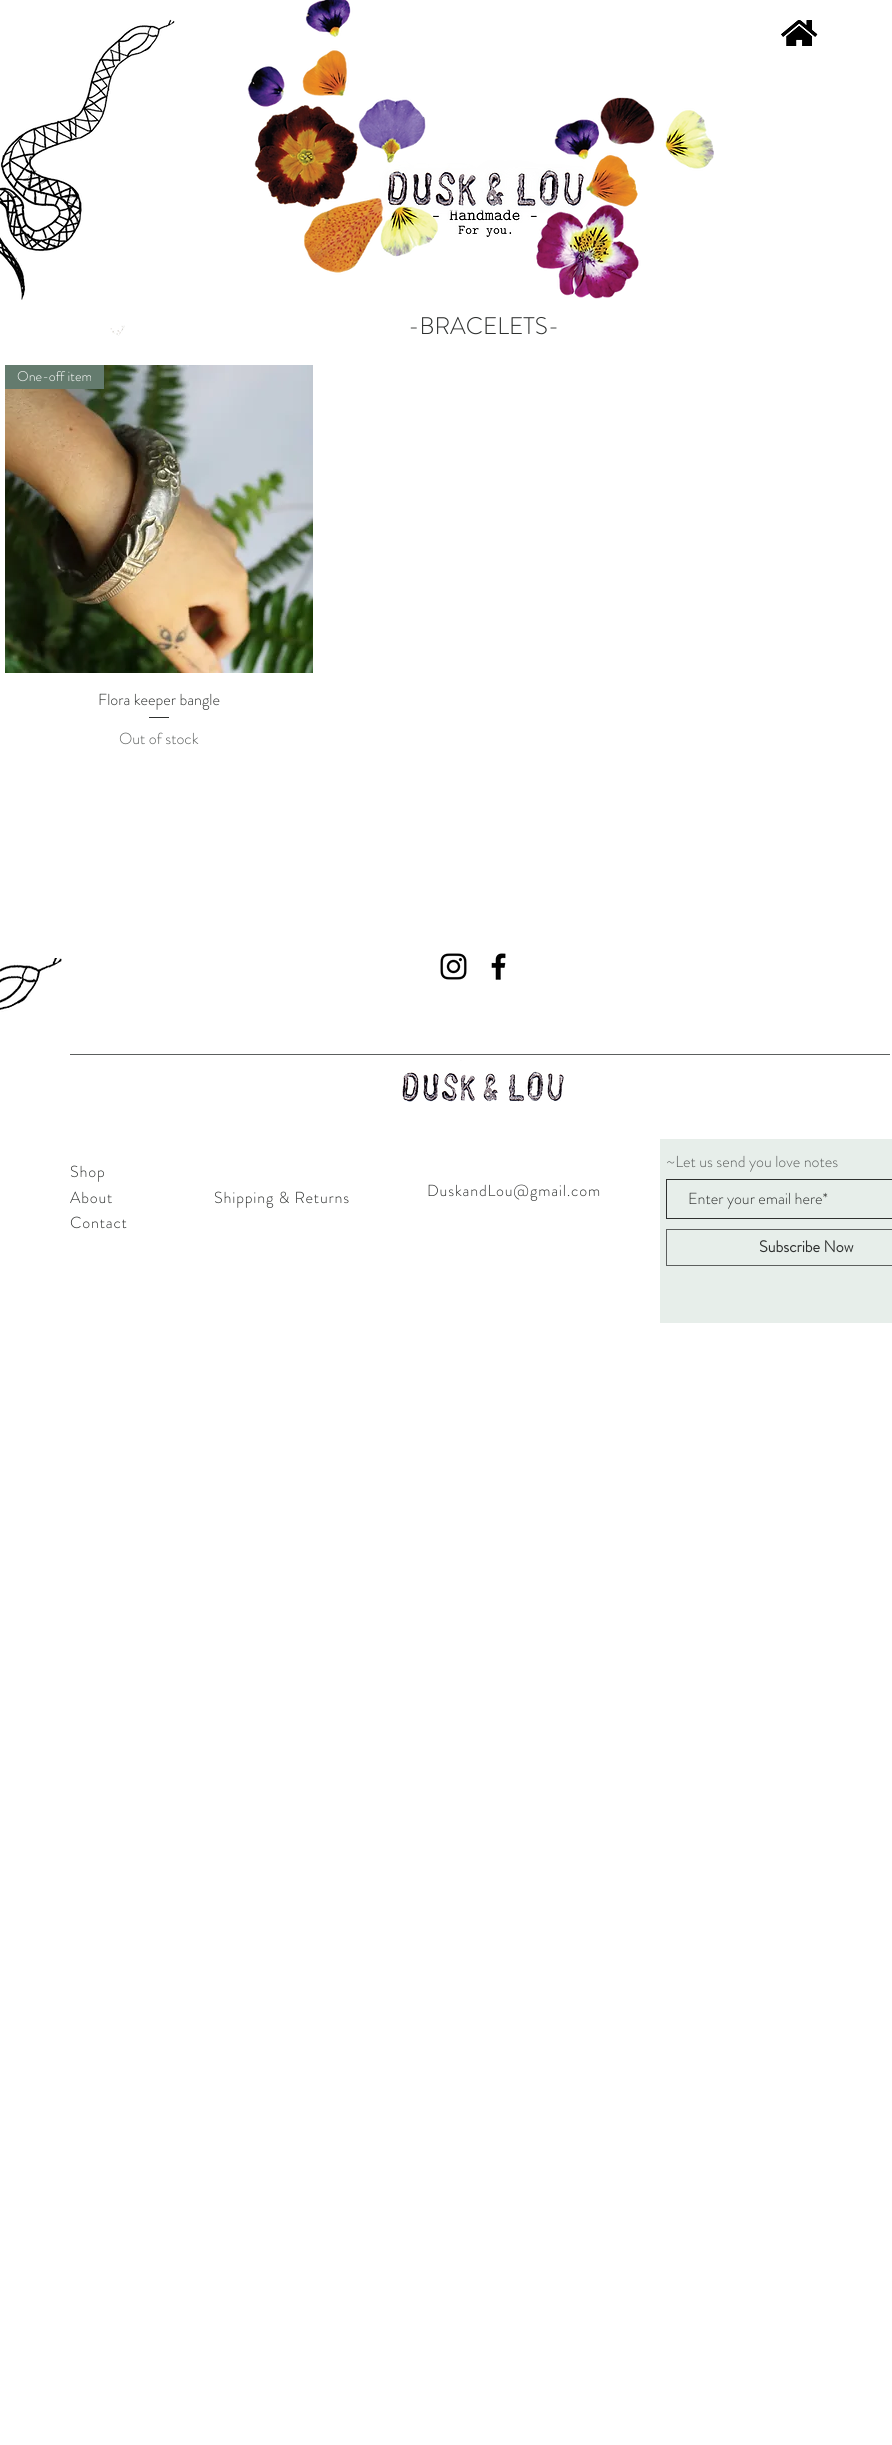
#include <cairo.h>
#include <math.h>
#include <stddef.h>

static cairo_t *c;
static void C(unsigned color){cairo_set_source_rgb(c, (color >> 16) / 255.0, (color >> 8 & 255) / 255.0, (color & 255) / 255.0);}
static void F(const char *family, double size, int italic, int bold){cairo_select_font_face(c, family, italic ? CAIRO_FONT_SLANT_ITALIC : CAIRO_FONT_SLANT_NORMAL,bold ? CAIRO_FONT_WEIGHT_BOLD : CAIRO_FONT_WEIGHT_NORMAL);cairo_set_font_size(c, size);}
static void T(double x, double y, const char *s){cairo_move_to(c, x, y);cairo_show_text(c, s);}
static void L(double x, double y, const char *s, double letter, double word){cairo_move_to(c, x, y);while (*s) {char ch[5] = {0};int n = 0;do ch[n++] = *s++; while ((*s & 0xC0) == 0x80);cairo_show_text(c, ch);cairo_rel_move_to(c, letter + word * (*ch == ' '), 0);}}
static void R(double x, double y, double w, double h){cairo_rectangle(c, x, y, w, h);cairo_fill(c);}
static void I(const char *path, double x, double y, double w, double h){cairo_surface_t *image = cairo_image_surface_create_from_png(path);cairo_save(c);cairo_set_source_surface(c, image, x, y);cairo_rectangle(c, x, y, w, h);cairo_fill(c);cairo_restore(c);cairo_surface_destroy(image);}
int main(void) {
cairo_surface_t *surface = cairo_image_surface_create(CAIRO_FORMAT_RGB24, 892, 2445);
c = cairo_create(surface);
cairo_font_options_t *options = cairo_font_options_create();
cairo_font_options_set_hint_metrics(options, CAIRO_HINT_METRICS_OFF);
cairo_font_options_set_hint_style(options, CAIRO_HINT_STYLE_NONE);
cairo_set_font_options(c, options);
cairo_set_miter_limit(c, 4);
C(0xffffff);
cairo_paint(c);
I("4.png",433,209,104,28);
I("1.png",247,0,467,299);
I("2.png",0,19,175,317);
I("3.png",781,20,37,26);
F("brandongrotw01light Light",24,0,0);
C(0x2e302f);
T(408,334,"-BRACELETS-");
I("5.png",5,365,308,308);
C(0x647b6e);
R(5,365,99,24);
F("brandongrotw01light Light",14,0,0);
C(0xffffff);
T(17,381,"One-off item");
F("brandongrotw01light Light",16,0,0);
C(0x2e302f);
T(98,705,"Flora keeper bangle");
R(149,717,20,1);
C(0x5c5f5e);
T(119,744,"Out of stock");
I("6.png",440,953,27,27);
I("7.png",491,953,15,27);
I("8.png",0,958,62,54);
R(70,1054,820,1);
I("9.png",402,1060,162,42);
C(0x2e302f);
L(70,1177,"Shop",.8,0);
L(70,1203,"About",.8,0);
L(70,1228,"Contact",.8,0);
L(214,1203,"Shipping & Returns",.8,0);
L(427,1196,"DuskandLou@gmail.com",.8,0);
C(0xe7eeea);
R(660,1139,232,184);
C(0x5c5f5e);
T(666,1167,"~Let us send you love notes");
cairo_rectangle(c,666.5,1179.5,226,39);
C(0x2e302f);
cairo_set_line_width(c,1);
cairo_stroke(c);
T(688,1204,"Enter your email here*");
cairo_rectangle(c,666.5,1229.5,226,36);
C(0x5c5f5e);
cairo_stroke(c);
F("brandongrotw01light",16,0,1);
C(0x2e302f);
T(759,1252,"Subscribe Now");
cairo_surface_write_to_png(surface, "o.png");
cairo_font_options_destroy(options);
cairo_destroy(c);
cairo_surface_destroy(surface);
return 0;
}
